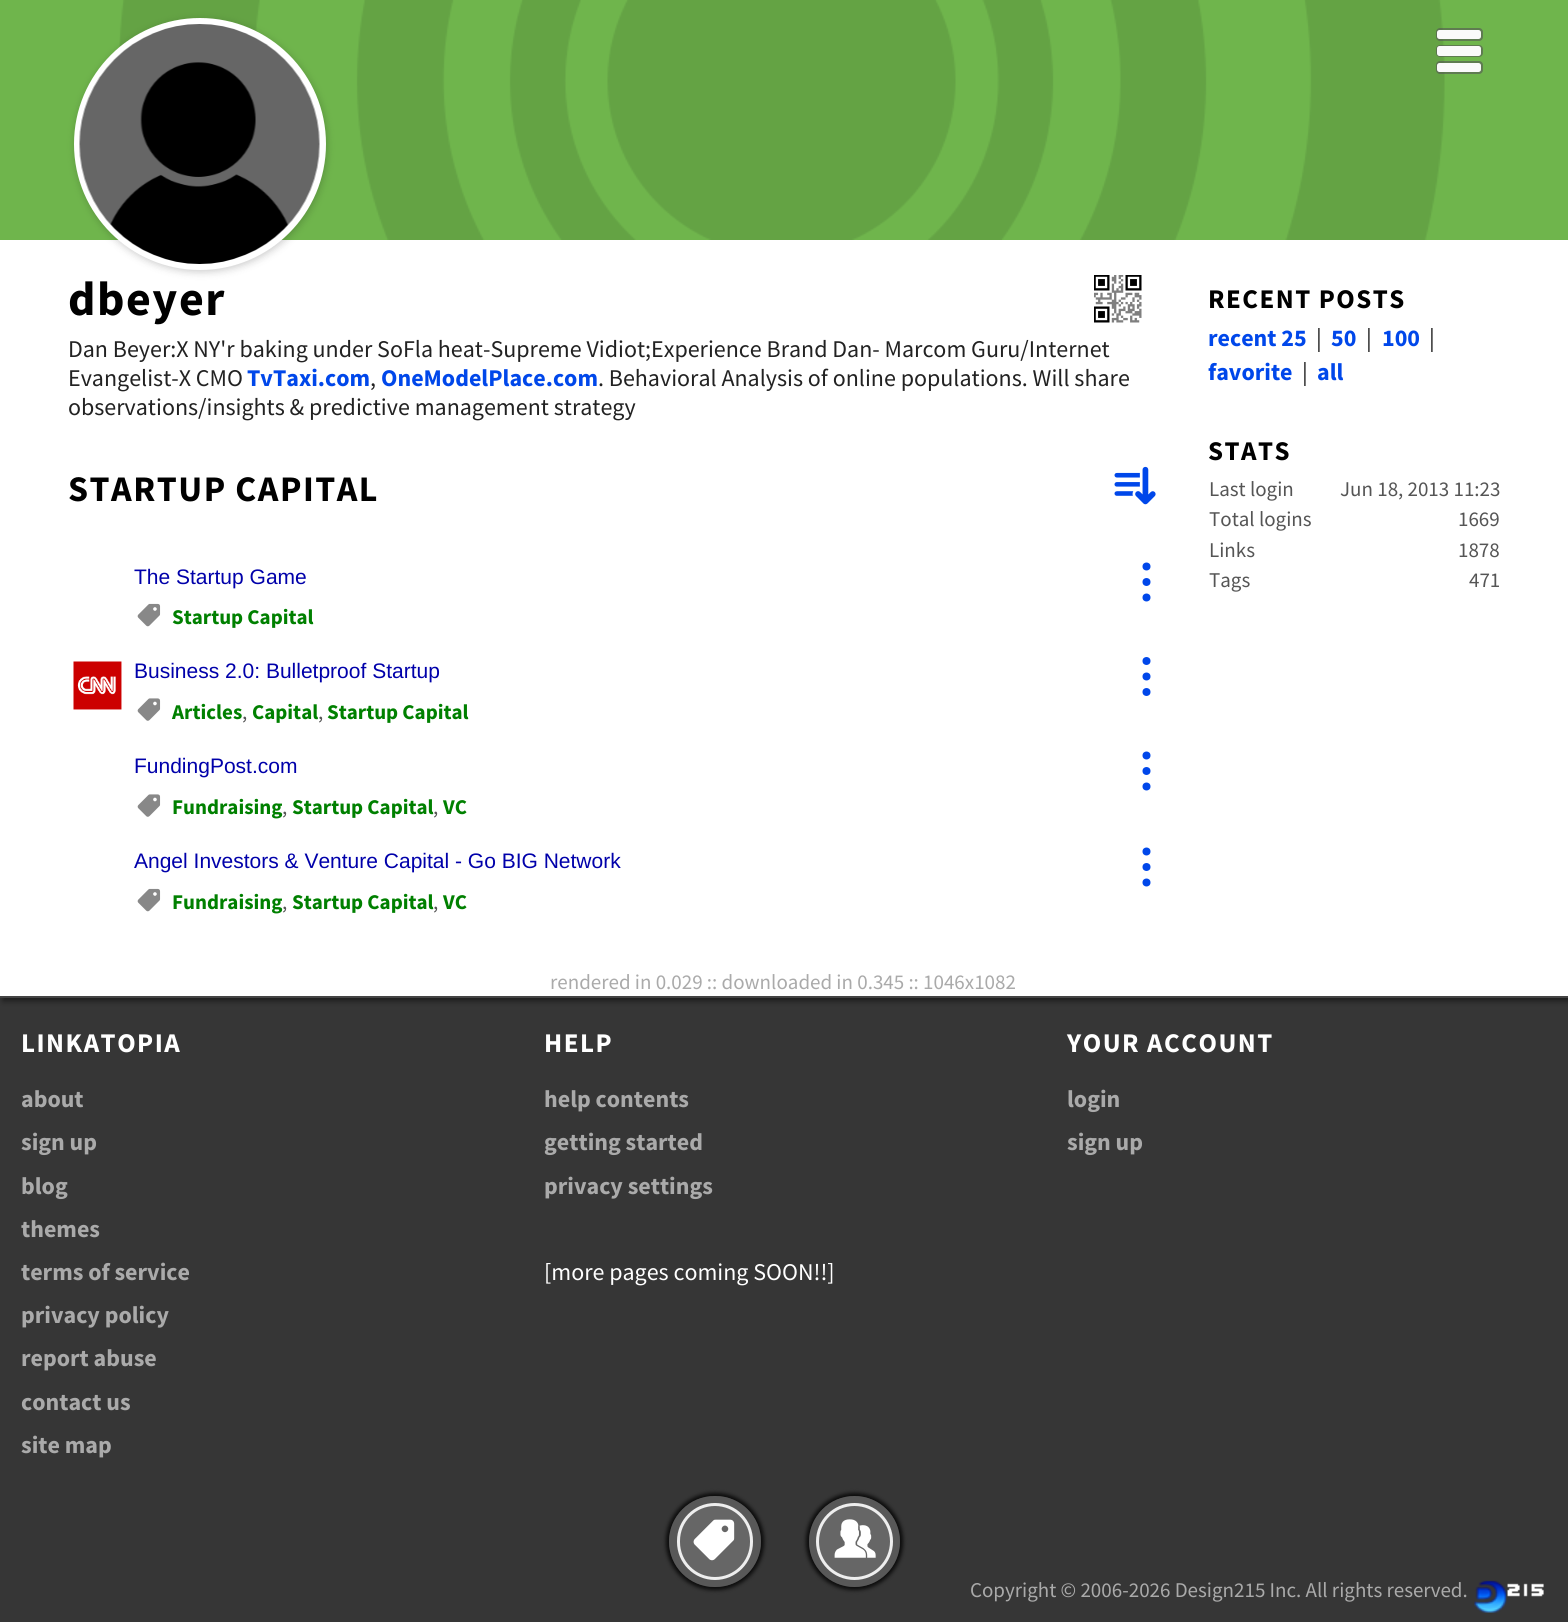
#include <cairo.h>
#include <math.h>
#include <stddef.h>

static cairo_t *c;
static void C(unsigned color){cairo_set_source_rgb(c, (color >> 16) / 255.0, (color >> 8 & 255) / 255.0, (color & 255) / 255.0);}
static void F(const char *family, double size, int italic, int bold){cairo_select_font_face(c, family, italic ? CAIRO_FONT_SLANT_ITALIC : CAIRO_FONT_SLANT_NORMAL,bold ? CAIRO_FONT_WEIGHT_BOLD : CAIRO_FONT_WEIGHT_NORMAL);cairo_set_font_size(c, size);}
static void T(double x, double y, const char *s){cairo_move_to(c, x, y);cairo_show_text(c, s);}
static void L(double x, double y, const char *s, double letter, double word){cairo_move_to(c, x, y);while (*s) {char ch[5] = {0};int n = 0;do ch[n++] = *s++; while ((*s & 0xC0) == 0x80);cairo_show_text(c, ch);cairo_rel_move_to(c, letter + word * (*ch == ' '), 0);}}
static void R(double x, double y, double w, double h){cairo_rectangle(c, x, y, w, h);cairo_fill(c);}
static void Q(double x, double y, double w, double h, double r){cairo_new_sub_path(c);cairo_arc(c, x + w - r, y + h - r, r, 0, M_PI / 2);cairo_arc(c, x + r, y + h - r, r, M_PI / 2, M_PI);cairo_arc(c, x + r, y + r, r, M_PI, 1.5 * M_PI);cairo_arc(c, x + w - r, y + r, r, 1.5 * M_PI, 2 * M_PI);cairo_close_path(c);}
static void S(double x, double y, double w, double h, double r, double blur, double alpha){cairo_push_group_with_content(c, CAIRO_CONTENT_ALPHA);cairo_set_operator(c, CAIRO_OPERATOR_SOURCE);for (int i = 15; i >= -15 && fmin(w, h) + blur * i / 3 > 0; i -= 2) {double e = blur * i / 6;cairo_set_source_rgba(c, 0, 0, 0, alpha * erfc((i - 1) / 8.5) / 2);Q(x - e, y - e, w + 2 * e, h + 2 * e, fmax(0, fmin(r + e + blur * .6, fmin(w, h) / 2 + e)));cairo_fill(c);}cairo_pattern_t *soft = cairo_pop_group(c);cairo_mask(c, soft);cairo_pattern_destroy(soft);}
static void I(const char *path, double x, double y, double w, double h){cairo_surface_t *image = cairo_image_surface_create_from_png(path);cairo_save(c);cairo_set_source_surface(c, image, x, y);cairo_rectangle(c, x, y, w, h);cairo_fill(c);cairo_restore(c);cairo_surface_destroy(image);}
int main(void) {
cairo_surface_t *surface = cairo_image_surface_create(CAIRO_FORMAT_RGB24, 1568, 1622);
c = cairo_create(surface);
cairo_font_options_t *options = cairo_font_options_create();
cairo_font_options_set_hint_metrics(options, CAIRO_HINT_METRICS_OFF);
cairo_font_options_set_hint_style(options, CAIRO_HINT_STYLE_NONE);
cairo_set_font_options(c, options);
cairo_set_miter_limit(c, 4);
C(0x363636);
cairo_paint(c);
C(0x000000);
S(3,3,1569,998,0,3,.5);
C(0x6fb54c);
R(0,0,1568,240);
I("1.png",119,0,1326,240);
C(0xffffff);
R(0,240,1568,756);
C(0x000000);
S(75,20,252,252,126,4,.2);
C(0xffffff);
cairo_arc(c,200,144,123,0,2 * M_PI);
cairo_fill_preserve(c);
cairo_set_line_width(c,6);
cairo_stroke(c);
I("2.png",79,24,241,240);
cairo_set_source_rgba(c,0.333,0.333,0.333,0.6);
Q(1436,28,47,13,4);
cairo_fill(c);
C(0xfafafa);
Q(1437,30,44,9,2.5);
cairo_fill(c);
cairo_set_source_rgba(c,0.333,0.333,0.333,0.6);
Q(1436,45,47,12,4);
cairo_fill(c);
C(0xfafafa);
Q(1437,46,44,10,2.5);
cairo_fill(c);
cairo_set_source_rgba(c,0.333,0.333,0.333,0.6);
Q(1436,61,47,13,4);
cairo_fill(c);
C(0xfafafa);
Q(1437,63,44,9,2.5);
cairo_fill(c);
C(0x444444);
R(0,996,1568,2);
F("Source Sans Pro",48,0,1);
C(0x000000);
L(68,315,"dbeyer",1.5,0);
I("3.png",1094,275,48,48);
F("Source Sans Pro",24,0,0);
C(0x222222);
T(68,357,"Dan Beyer:X NY'r baking under SoFla heat-Supreme Vidiot;Experience Brand Dan- Marcom Guru/Internet");
T(68,386,"Evangelist-X CMO");
F("Source Sans Pro",24,0,1);
C(0x0047ea);
T(247,386,"TvTaxi.com");
F("Source Sans Pro",24,0,0);
C(0x222222);
T(370,386,",");
F("Source Sans Pro",24,0,1);
C(0x0047ea);
T(381,386,"OneModelPlace.com");
F("Source Sans Pro",24,0,0);
C(0x222222);
T(598,386,". Behavioral Analysis of online populations. Will share");
T(68,415,"observations/insights & predictive management strategy");
F("Source Sans Pro",36,0,1);
C(0x000000);
L(68,501,"STARTUP CAPITAL",1.5,0);
I("4.png",1114,466,42,39);
F("Liberation Sans",21,0,0);
C(0x0000aa);
T(134,584,"The Startup Game");
C(0x0047ea);
cairo_new_path(c);
cairo_arc(c,1146.5,566.5,4,0,2 * M_PI);
cairo_fill(c);
cairo_arc(c,1146.5,582,4,0,2 * M_PI);
cairo_fill(c);
cairo_arc(c,1146.5,597.5,4,0,2 * M_PI);
cairo_fill(c);
I("5.png",137,603,24,24);
F("Source Sans Pro",21,0,1);
C(0x008000);
T(172,624,"Startup Capital");
I("6.png",73,661,49,49);
F("Liberation Sans",21,0,0);
C(0x0000aa);
T(134,678,"Business 2.0: Bulletproof Startup");
C(0x0047ea);
cairo_new_path(c);
cairo_arc(c,1146.5,661,4,0,2 * M_PI);
cairo_fill(c);
cairo_arc(c,1146.5,676.5,4,0,2 * M_PI);
cairo_fill(c);
cairo_arc(c,1146.5,692,4,0,2 * M_PI);
cairo_fill(c);
I("7.png",137,698,24,23);
F("Source Sans Pro",21,0,1);
C(0x008000);
T(172,719,"Articles");
F("Source Sans Pro",21,0,0);
C(0x555555);
T(242,719,",");
F("Source Sans Pro",21,0,1);
C(0x008000);
T(252,719,"Capital");
F("Source Sans Pro",21,0,0);
C(0x555555);
T(318,719,",");
F("Source Sans Pro",21,0,1);
C(0x008000);
T(327,719,"Startup Capital");
F("Liberation Sans",21,0,0);
C(0x0000aa);
T(134,773,"FundingPost.com");
C(0x0047ea);
cairo_new_path(c);
cairo_arc(c,1146.5,755.5,4,0,2 * M_PI);
cairo_fill(c);
cairo_arc(c,1146.5,771,4,0,2 * M_PI);
cairo_fill(c);
cairo_arc(c,1146.5,786.5,4,0,2 * M_PI);
cairo_fill(c);
I("7.png",137,794,24,23);
F("Source Sans Pro",21,0,1);
C(0x008000);
T(172,814,"Fundraising");
F("Source Sans Pro",21,0,0);
C(0x555555);
T(282,814,",");
F("Source Sans Pro",21,0,1);
C(0x008000);
T(292,814,"Startup Capital");
F("Source Sans Pro",21,0,0);
C(0x555555);
T(433,814,",");
F("Source Sans Pro",21,0,1);
C(0x008000);
T(443,814,"VC");
F("Liberation Sans",21,0,0);
C(0x0000aa);
T(134,868,"Angel Investors & Venture Capital - Go BIG Network");
C(0x0047ea);
cairo_new_path(c);
cairo_arc(c,1146.5,851.5,4,0,2 * M_PI);
cairo_fill(c);
cairo_arc(c,1146.5,867,4,0,2 * M_PI);
cairo_fill(c);
cairo_arc(c,1146.5,882.5,4,0,2 * M_PI);
cairo_fill(c);
I("5.png",137,888,24,24);
F("Source Sans Pro",21,0,1);
C(0x008000);
T(172,909,"Fundraising");
F("Source Sans Pro",21,0,0);
C(0x555555);
T(282,909,",");
F("Source Sans Pro",21,0,1);
C(0x008000);
T(292,909,"Startup Capital");
F("Source Sans Pro",21,0,0);
C(0x555555);
T(433,909,",");
F("Source Sans Pro",21,0,1);
C(0x008000);
T(443,909,"VC");
F("Source Sans Pro",27,0,1);
C(0x000000);
L(1208,308,"RECENT POSTS",1.5,0);
F("Source Sans Pro",24,0,1);
C(0x0047ea);
T(1208,346,"recent 25");
F("Source Sans Pro",24,0,0);
C(0x222222);
T(1316,346,"|");
F("Source Sans Pro",24,0,1);
C(0x0047ea);
T(1331,346,"50");
F("Source Sans Pro",24,0,0);
C(0x222222);
T(1366,346,"|");
F("Source Sans Pro",24,0,1);
C(0x0047ea);
T(1382,346,"100");
F("Source Sans Pro",24,0,0);
C(0x222222);
T(1429,346,"|");
F("Source Sans Pro",24,0,1);
C(0x0047ea);
T(1208,380,"favorite");
F("Source Sans Pro",24,0,0);
C(0x222222);
T(1302,380,"|");
F("Source Sans Pro",24,0,1);
C(0x0047ea);
T(1317,380,"all");
F("Source Sans Pro",27,0,1);
C(0x000000);
L(1208,460,"STATS",1.5,0);
F("Source Sans Pro",21,0,0);
C(0x555555);
T(1209,496,"Last login");
T(1340,496,"Jun 18, 2013 11:23");
T(1209,526,"Total logins");
T(1458,526,"1669");
T(1209,557,"Links");
T(1458,557,"1878");
T(1209,587,"Tags");
T(1469,587,"471");
C(0xaaaaaa);
T(550,989,"rendered in 0.029 :: downloaded in 0.345 :: 1046x1082");
cairo_save(c);
cairo_set_fill_rule(c,CAIRO_FILL_RULE_EVEN_ODD);
cairo_new_path(c);
cairo_move_to(c,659,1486);
cairo_line_to(c,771,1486);
cairo_line_to(c,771,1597);
cairo_line_to(c,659,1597);
cairo_close_path(c);
cairo_move_to(c,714.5,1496);
cairo_line_to(c,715.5,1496);
cairo_curve_to(c,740.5,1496,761,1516.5,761,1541.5);
cairo_curve_to(c,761,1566.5,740.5,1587,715.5,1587);
cairo_line_to(c,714.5,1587);
cairo_curve_to(c,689.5,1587,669,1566.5,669,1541.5);
cairo_curve_to(c,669,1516.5,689.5,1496,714.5,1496);
cairo_close_path(c);
cairo_clip(c);
C(0x000000);
S(666,1493,98,97,48.5,2,.8);
cairo_restore(c);
cairo_set_source_rgba(c,0.376,0.376,0.376,0.8);
Q(669,1496,92,91,45.5);
cairo_fill(c);
C(0x666666);
Q(678.5,1504.5,73,74,36.5);
cairo_fill_preserve(c);
C(0xeeeeee);
cairo_set_line_width(c,3);
cairo_stroke(c);
I("8.png",693,1519,42,42);
cairo_save(c);
cairo_set_fill_rule(c,CAIRO_FILL_RULE_EVEN_ODD);
cairo_new_path(c);
cairo_move_to(c,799,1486);
cairo_line_to(c,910,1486);
cairo_line_to(c,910,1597);
cairo_line_to(c,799,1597);
cairo_close_path(c);
cairo_move_to(c,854.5,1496);
cairo_curve_to(c,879.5,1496,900,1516.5,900,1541.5);
cairo_curve_to(c,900,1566.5,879.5,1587,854.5,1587);
cairo_curve_to(c,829.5,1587,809,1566.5,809,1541.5);
cairo_curve_to(c,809,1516.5,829.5,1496,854.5,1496);
cairo_close_path(c);
cairo_clip(c);
C(0x000000);
S(806,1493,97,97,48.5,2,.8);
cairo_restore(c);
cairo_set_source_rgba(c,0.376,0.376,0.376,0.8);
cairo_arc(c,854.5,1541.5,45.5,0,2 * M_PI);
cairo_fill(c);
C(0x666666);
cairo_arc(c,854.5,1541.5,37,0,2 * M_PI);
cairo_fill_preserve(c);
C(0xeeeeee);
cairo_stroke(c);
I("9.png",834,1519,42,39);
F("Source Sans Pro",27,0,1);
C(0xffffff);
L(21,1052,"LINKATOPIA",1.5,0);
F("Source Sans Pro",24,0,1);
C(0xaaaaaa);
T(21,1107,"about");
T(21,1150,"sign up");
T(21,1194,"blog");
T(21,1237,"themes");
T(21,1280,"terms of service");
T(21,1323,"privacy policy");
T(21,1366,"report abuse");
T(21,1410,"contact us");
T(21,1453,"site map");
F("Source Sans Pro",27,0,1);
C(0xffffff);
L(544,1052,"HELP",1.5,0);
F("Source Sans Pro",24,0,1);
C(0xaaaaaa);
T(544,1107,"help contents");
T(544,1150,"getting started");
T(544,1194,"privacy settings");
F("Source Sans Pro",24,0,0);
C(0xffffff);
T(544,1280,"[more pages coming SOON!!]");
F("Source Sans Pro",27,0,1);
L(1067,1052,"YOUR ACCOUNT",1.5,0);
F("Source Sans Pro",24,0,1);
C(0xaaaaaa);
T(1067,1107,"login");
T(1067,1150,"sign up");
F("Source Sans Pro",21,0,0);
T(970,1597,"Copyright © 2006-2026 Design215 Inc. All rights reserved.");
I("10.png",1474,1580,70,33);
cairo_surface_write_to_png(surface, "o.png");
cairo_font_options_destroy(options);
cairo_destroy(c);
cairo_surface_destroy(surface);
return 0;
}
